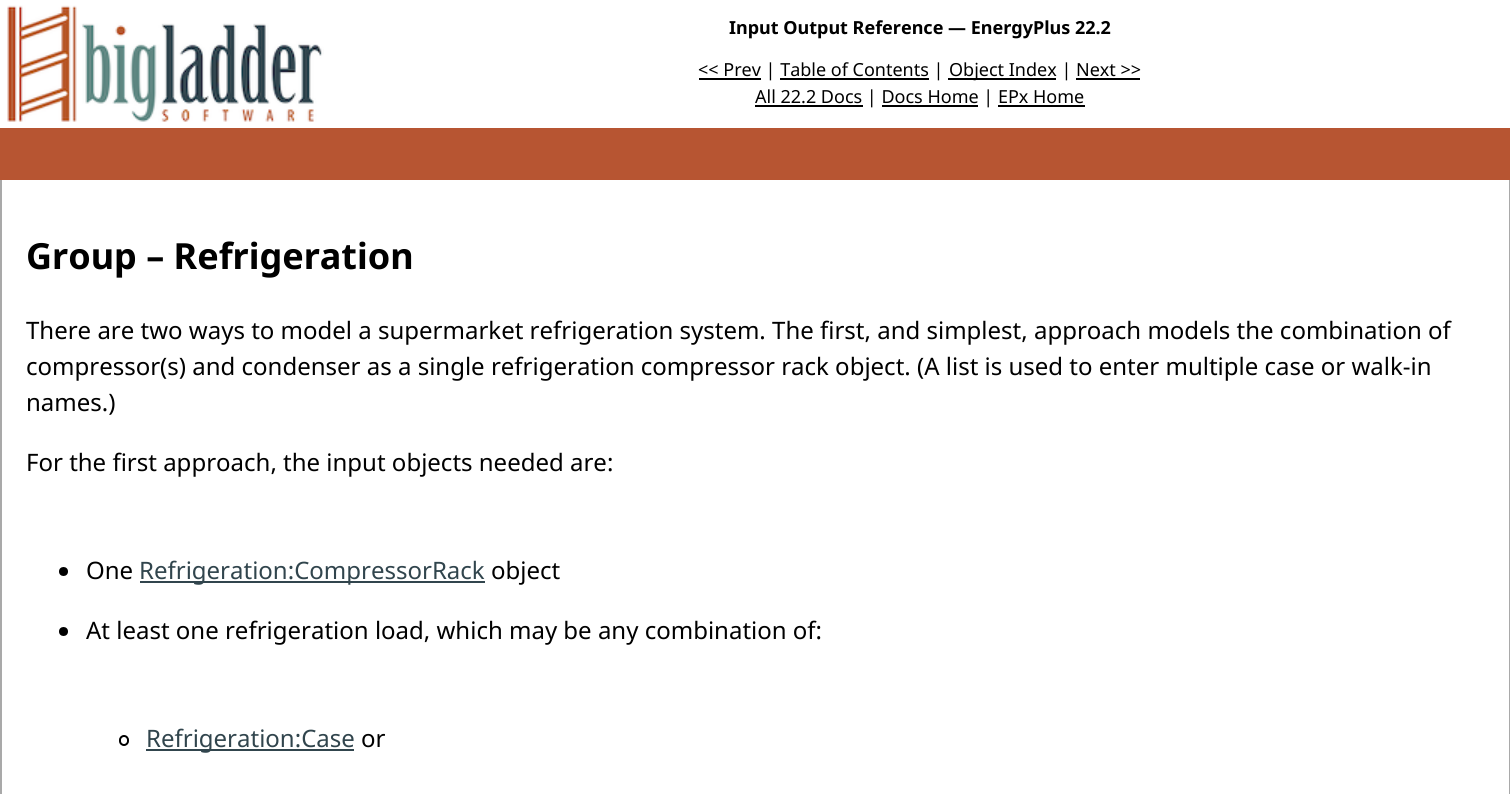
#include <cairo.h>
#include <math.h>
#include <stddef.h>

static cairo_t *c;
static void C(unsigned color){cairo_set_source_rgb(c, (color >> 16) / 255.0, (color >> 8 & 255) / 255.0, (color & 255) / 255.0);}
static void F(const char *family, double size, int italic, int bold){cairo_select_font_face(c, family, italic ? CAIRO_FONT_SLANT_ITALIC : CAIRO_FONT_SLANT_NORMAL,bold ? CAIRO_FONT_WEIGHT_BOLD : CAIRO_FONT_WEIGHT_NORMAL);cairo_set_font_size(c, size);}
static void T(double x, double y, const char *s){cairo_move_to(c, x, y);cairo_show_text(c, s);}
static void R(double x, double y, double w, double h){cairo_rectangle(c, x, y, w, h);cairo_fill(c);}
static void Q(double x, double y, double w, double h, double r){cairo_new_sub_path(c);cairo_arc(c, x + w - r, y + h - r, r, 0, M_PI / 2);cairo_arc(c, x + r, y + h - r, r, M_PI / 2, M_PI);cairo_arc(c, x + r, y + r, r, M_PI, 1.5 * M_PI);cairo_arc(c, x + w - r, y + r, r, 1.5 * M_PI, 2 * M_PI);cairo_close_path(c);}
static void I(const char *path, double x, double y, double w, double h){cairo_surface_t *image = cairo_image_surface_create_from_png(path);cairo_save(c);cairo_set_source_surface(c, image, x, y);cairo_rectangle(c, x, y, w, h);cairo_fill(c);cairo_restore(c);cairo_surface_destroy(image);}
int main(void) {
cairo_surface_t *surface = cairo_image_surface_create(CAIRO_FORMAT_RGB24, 1510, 794);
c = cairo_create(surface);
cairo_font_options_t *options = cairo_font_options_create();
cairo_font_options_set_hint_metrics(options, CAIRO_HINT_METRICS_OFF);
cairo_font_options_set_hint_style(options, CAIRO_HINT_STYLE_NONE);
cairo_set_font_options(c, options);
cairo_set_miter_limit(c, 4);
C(0xffffff);
cairo_paint(c);
I("1.png",7,5,317,117);
F("Noto Sans",18,0,1);
C(0x000000);
T(729,34,"Input Output Reference — EnergyPlus 22.2");
R(699,78,62,2);
F("Noto Sans",18,0,0);
T(698,76,"<< Prev | Table of Contents |");
R(780,78,149,2);
R(948,78,108,2);
T(949,76,"Object Index | Next >>");
R(1076,78,64,2);
R(755,105,108,2);
T(755,103,"All 22.2 Docs | Docs Home | EPx Home");
R(882,105,96,2);
R(998,105,87,2);
C(0xb75532);
R(0,128,1510,52);
C(0xa9a9a9);
R(1509,180,1,614);
R(0,180,2,614);
F("Noto Sans",36,0,1);
C(0x000000);
T(26,269,"Group – Refrigeration");
F("Noto Sans",24,0,0);
T(26,339,"There are two ways to model a supermarket refrigeration system. The first, and simplest, approach models the combination of");
T(26,375,"compressor(s) and condenser as a single refrigeration compressor rack object. (A list is used to enter multiple case or walk-in");
T(26,411,"names.)");
T(26,471,"For the first approach, the input objects needed are:");
cairo_new_path(c);
cairo_arc(c,63.5,571.5,4.5,0,2 * M_PI);
cairo_fill(c);
T(86,579,"One");
C(0x31454d);
R(140,581,345,2);
T(139,579,"Refrigeration:CompressorRack");
C(0x000000);
T(491,579,"object");
cairo_new_path(c);
cairo_arc(c,63.5,631.5,4.5,0,2 * M_PI);
cairo_fill(c);
T(86,639,"At least one refrigeration load, which may be any combination of:");
Q(120,736,8,9,4);
cairo_stroke(c);
C(0x31454d);
R(146,749,208,2);
T(146,747,"Refrigeration:Case");
C(0x000000);
T(361,747,"or");
cairo_surface_write_to_png(surface, "o.png");
cairo_font_options_destroy(options);
cairo_destroy(c);
cairo_surface_destroy(surface);
return 0;
}
